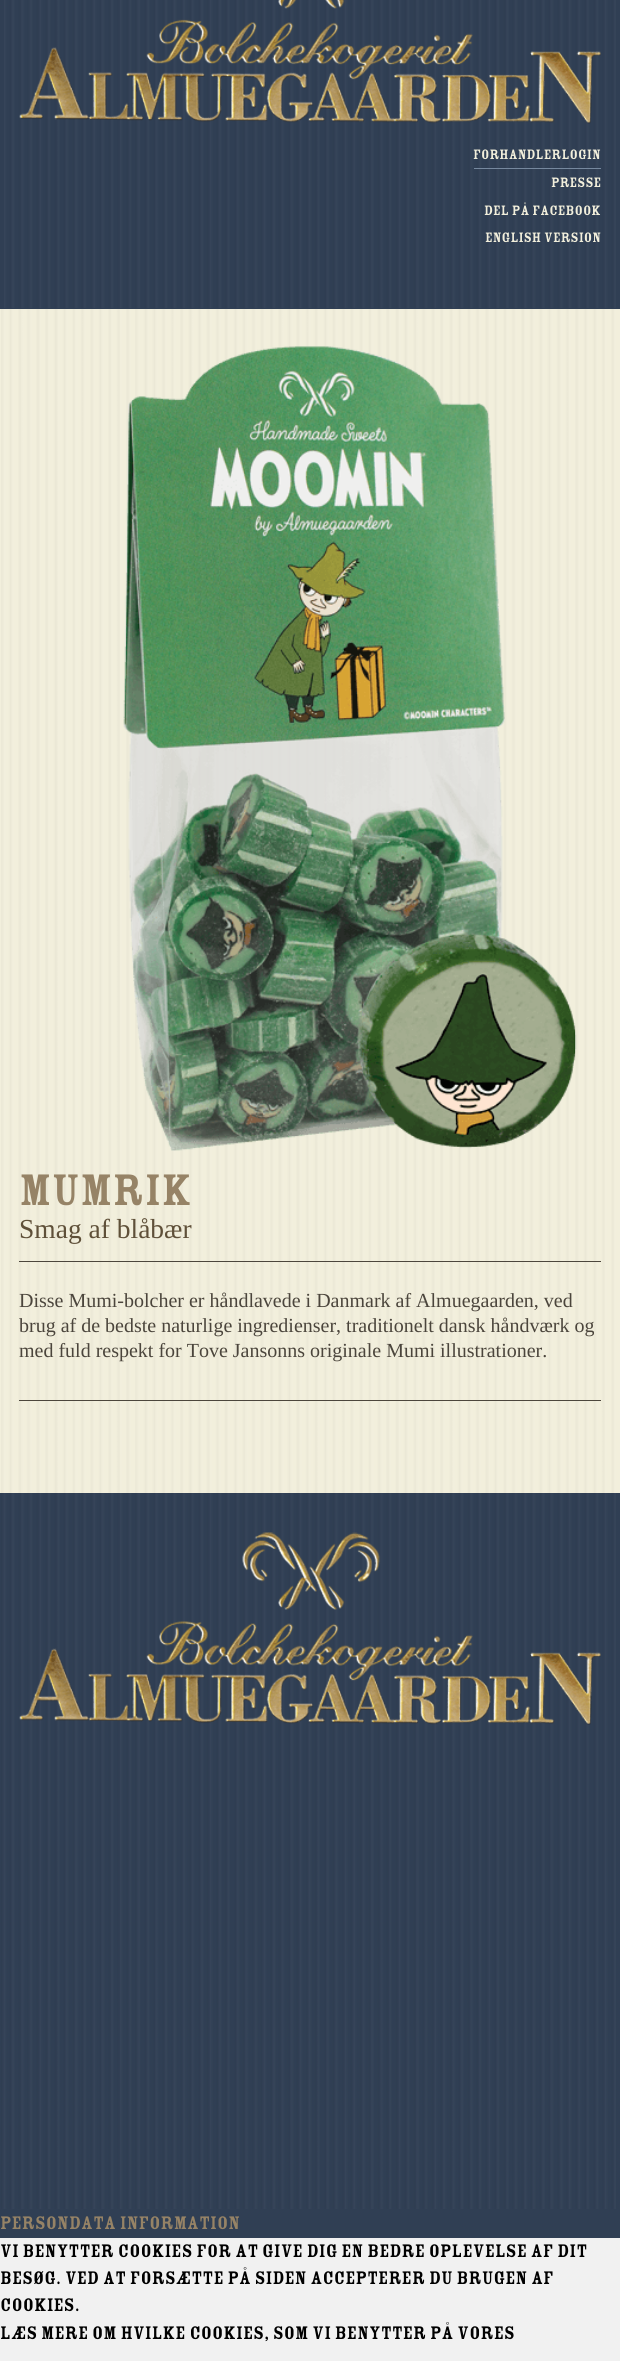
#include <cairo.h>
#include <math.h>
#include <stddef.h>

static cairo_t *c;
static void C(unsigned color){cairo_set_source_rgb(c, (color >> 16) / 255.0, (color >> 8 & 255) / 255.0, (color & 255) / 255.0);}
static void F(const char *family, double size, int italic, int bold){cairo_select_font_face(c, family, italic ? CAIRO_FONT_SLANT_ITALIC : CAIRO_FONT_SLANT_NORMAL,bold ? CAIRO_FONT_WEIGHT_BOLD : CAIRO_FONT_WEIGHT_NORMAL);cairo_set_font_size(c, size);}
static void T(double x, double y, const char *s){cairo_move_to(c, x, y);cairo_show_text(c, s);}
static void R(double x, double y, double w, double h){cairo_rectangle(c, x, y, w, h);cairo_fill(c);}
static void I(const char *path, double x, double y, double w, double h){cairo_surface_t *image = cairo_image_surface_create_from_png(path);cairo_save(c);cairo_set_source_surface(c, image, x, y);cairo_rectangle(c, x, y, w, h);cairo_fill(c);cairo_restore(c);cairo_surface_destroy(image);}
int main(void) {
cairo_surface_t *surface = cairo_image_surface_create(CAIRO_FORMAT_RGB24, 620, 2361);
c = cairo_create(surface);
cairo_font_options_t *options = cairo_font_options_create();
cairo_font_options_set_hint_metrics(options, CAIRO_HINT_METRICS_OFF);
cairo_font_options_set_hint_style(options, CAIRO_HINT_STYLE_NONE);
cairo_set_font_options(c, options);
cairo_set_miter_limit(c, 4);
C(0x303f54);
cairo_paint(c);
I("1.png",4,0,612,308);
I("2.png",19,0,582,124);
F("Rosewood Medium",15,0,0);
C(0xf2efdc);
T(473,159,"Forhandlerlogin");
C(0x76889e);
R(474,168,127,1);
C(0xf2efdc);
T(551,187,"Presse");
T(484,215,"Del på Facebook");
T(485,242,"English version");
R(0,309,620,1184);
I("3.png",1,309,615,1183);
I("4.png",123,346,454,805);
F("Rosewood Medium",48.5,0,0);
C(0x968366);
T(19,1205,"Mumrik");
F("Tinos",27.5,0,0);
C(0x5f5039);
T(19,1238,"Smag af blåbær");
C(0x4c463c);
R(19,1261,582,1);
R(19,1400,582,1);
F("Tinos",20,0,0);
C(0x4b453c);
T(19,1307,"Disse Mumi-bolcher er håndlavede i Danmark af Almuegaarden, ved");
T(19,1332,"brug af de bedste naturlige ingredienser, traditionelt dansk håndværk og");
T(19,1357,"med fuld respekt for Tove Jansonns originale Mumi illustrationer.");
I("5.png",1,1492,615,717);
I("6.png",19,1532,582,193);
F("Rosewood Medium",20,0,0);
C(0x968366);
T(0,2229,"Persondata information");
C(0xf1f1f1);
R(0,2238,620,123);
C(0x000000);
T(0,2257,"Vi benytter cookies for at give dig en bedre oplevelse af dit");
T(0,2284,"besøg. Ved at forsætte på siden accepterer du brugen af");
T(0,2311,"cookies.");
T(0,2339,"Læs mere om hvilke cookies, som vi benytter på vores");
cairo_surface_write_to_png(surface, "o.png");
cairo_font_options_destroy(options);
cairo_destroy(c);
cairo_surface_destroy(surface);
return 0;
}
